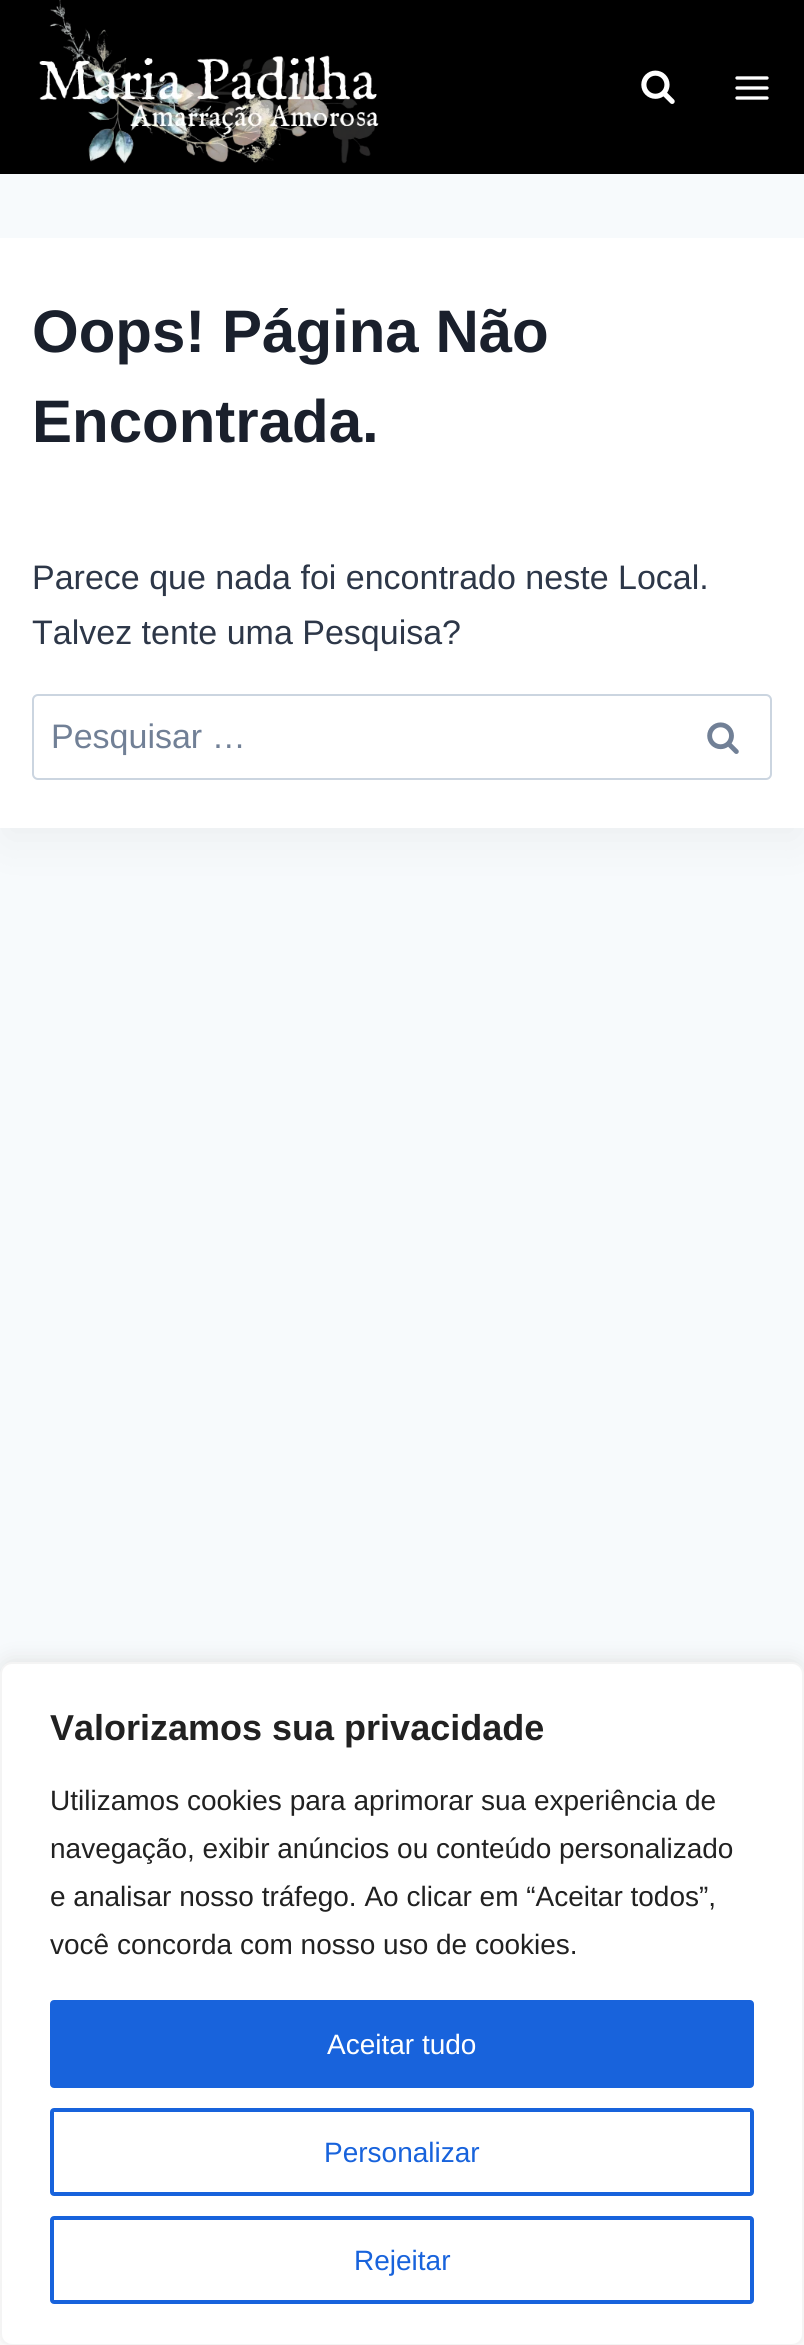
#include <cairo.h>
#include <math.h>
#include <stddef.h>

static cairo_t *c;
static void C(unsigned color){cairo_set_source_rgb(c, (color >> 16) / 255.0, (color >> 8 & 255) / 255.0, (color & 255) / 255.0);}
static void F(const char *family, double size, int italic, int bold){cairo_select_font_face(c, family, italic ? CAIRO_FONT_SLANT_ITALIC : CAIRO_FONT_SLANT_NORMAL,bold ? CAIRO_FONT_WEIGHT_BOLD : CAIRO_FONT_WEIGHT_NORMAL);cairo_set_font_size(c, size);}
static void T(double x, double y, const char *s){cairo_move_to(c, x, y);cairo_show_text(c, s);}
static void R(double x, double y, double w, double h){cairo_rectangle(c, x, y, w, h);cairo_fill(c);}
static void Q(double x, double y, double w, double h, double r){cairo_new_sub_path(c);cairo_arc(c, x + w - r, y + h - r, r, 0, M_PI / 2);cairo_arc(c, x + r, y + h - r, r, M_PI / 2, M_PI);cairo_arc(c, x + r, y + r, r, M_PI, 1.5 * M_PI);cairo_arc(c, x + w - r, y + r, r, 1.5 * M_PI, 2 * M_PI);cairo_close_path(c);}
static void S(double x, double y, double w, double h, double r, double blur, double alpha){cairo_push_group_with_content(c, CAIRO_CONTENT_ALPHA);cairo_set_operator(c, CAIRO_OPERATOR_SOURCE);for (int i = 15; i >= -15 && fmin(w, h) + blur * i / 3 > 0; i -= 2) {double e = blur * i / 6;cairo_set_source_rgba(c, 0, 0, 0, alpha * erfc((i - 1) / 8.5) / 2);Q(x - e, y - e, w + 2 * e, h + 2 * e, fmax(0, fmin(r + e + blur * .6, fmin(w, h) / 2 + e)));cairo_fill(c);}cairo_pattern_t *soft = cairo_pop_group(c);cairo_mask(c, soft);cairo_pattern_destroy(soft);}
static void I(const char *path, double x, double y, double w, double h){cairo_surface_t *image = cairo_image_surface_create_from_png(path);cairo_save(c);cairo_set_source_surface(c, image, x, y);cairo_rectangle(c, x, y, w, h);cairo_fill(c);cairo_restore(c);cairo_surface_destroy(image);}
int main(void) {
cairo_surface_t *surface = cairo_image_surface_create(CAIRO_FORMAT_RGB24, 804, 2345);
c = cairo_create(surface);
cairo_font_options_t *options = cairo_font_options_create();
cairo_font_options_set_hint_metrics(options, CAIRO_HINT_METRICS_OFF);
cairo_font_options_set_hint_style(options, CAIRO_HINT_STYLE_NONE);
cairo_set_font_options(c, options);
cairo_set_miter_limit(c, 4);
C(0xf7fafc);
cairo_paint(c);
C(0x000000);
R(0,0,804,174);
I("1.png",39,0,340,164);
I("2.png",641,70,34,34);
I("3.png",735,76,34,24);
C(0x000000);
S(4,288,796,550,0,25,.05);
C(0xffffff);
R(0,238,804,590);
F("Liberation Sans",60,0,1);
C(0x1a202c);
T(32,352,"Oops! Página Não");
T(32,442,"Encontrada.");
F("Liberation Sans",34,0,0);
C(0x2d3748);
T(32,589,"Parece que nada foi encontrado neste Local.");
T(32,644,"Talvez tente uma Pesquisa?");
Q(33,695,738,84,5);
C(0xcbd5e0);
cairo_stroke(c);
C(0x718096);
T(51,748,"Pesquisar …");
I("4.png",707,722,32,32);
C(0xffffff);
R(0,2334,804,11);
C(0xacabab);
S(0,1660,804,684,12,10,.3);
C(0xffffff);
Q(1,1663,802,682,11);
cairo_fill_preserve(c);
C(0xf4f4f4);
cairo_stroke(c);
F("Liberation Sans",36,0,1);
C(0x212121);
T(50,1740,"Valorizamos sua privacidade");
F("Liberation Sans",28,0,0);
T(50,1810,"Utilizamos cookies para aprimorar sua experiência de");
T(50,1858,"navegação, exibir anúncios ou conteúdo personalizado");
T(50,1906,"e analisar nosso tráfego. Ao clicar em “Aceitar todos”,");
T(50,1954,"você concorda com nosso uso de cookies.");
C(0x1863dc);
Q(52,2002,700,84,2);
cairo_fill_preserve(c);
cairo_set_line_width(c,4);
cairo_stroke(c);
C(0xffffff);
T(327,2054,"Aceitar tudo");
Q(52,2110,700,84,2);
C(0x1863dc);
cairo_stroke(c);
T(324,2162,"Personalizar");
Q(52,2218,700,84,2);
cairo_stroke(c);
T(354,2270,"Rejeitar");
cairo_surface_write_to_png(surface, "o.png");
cairo_font_options_destroy(options);
cairo_destroy(c);
cairo_surface_destroy(surface);
return 0;
}
